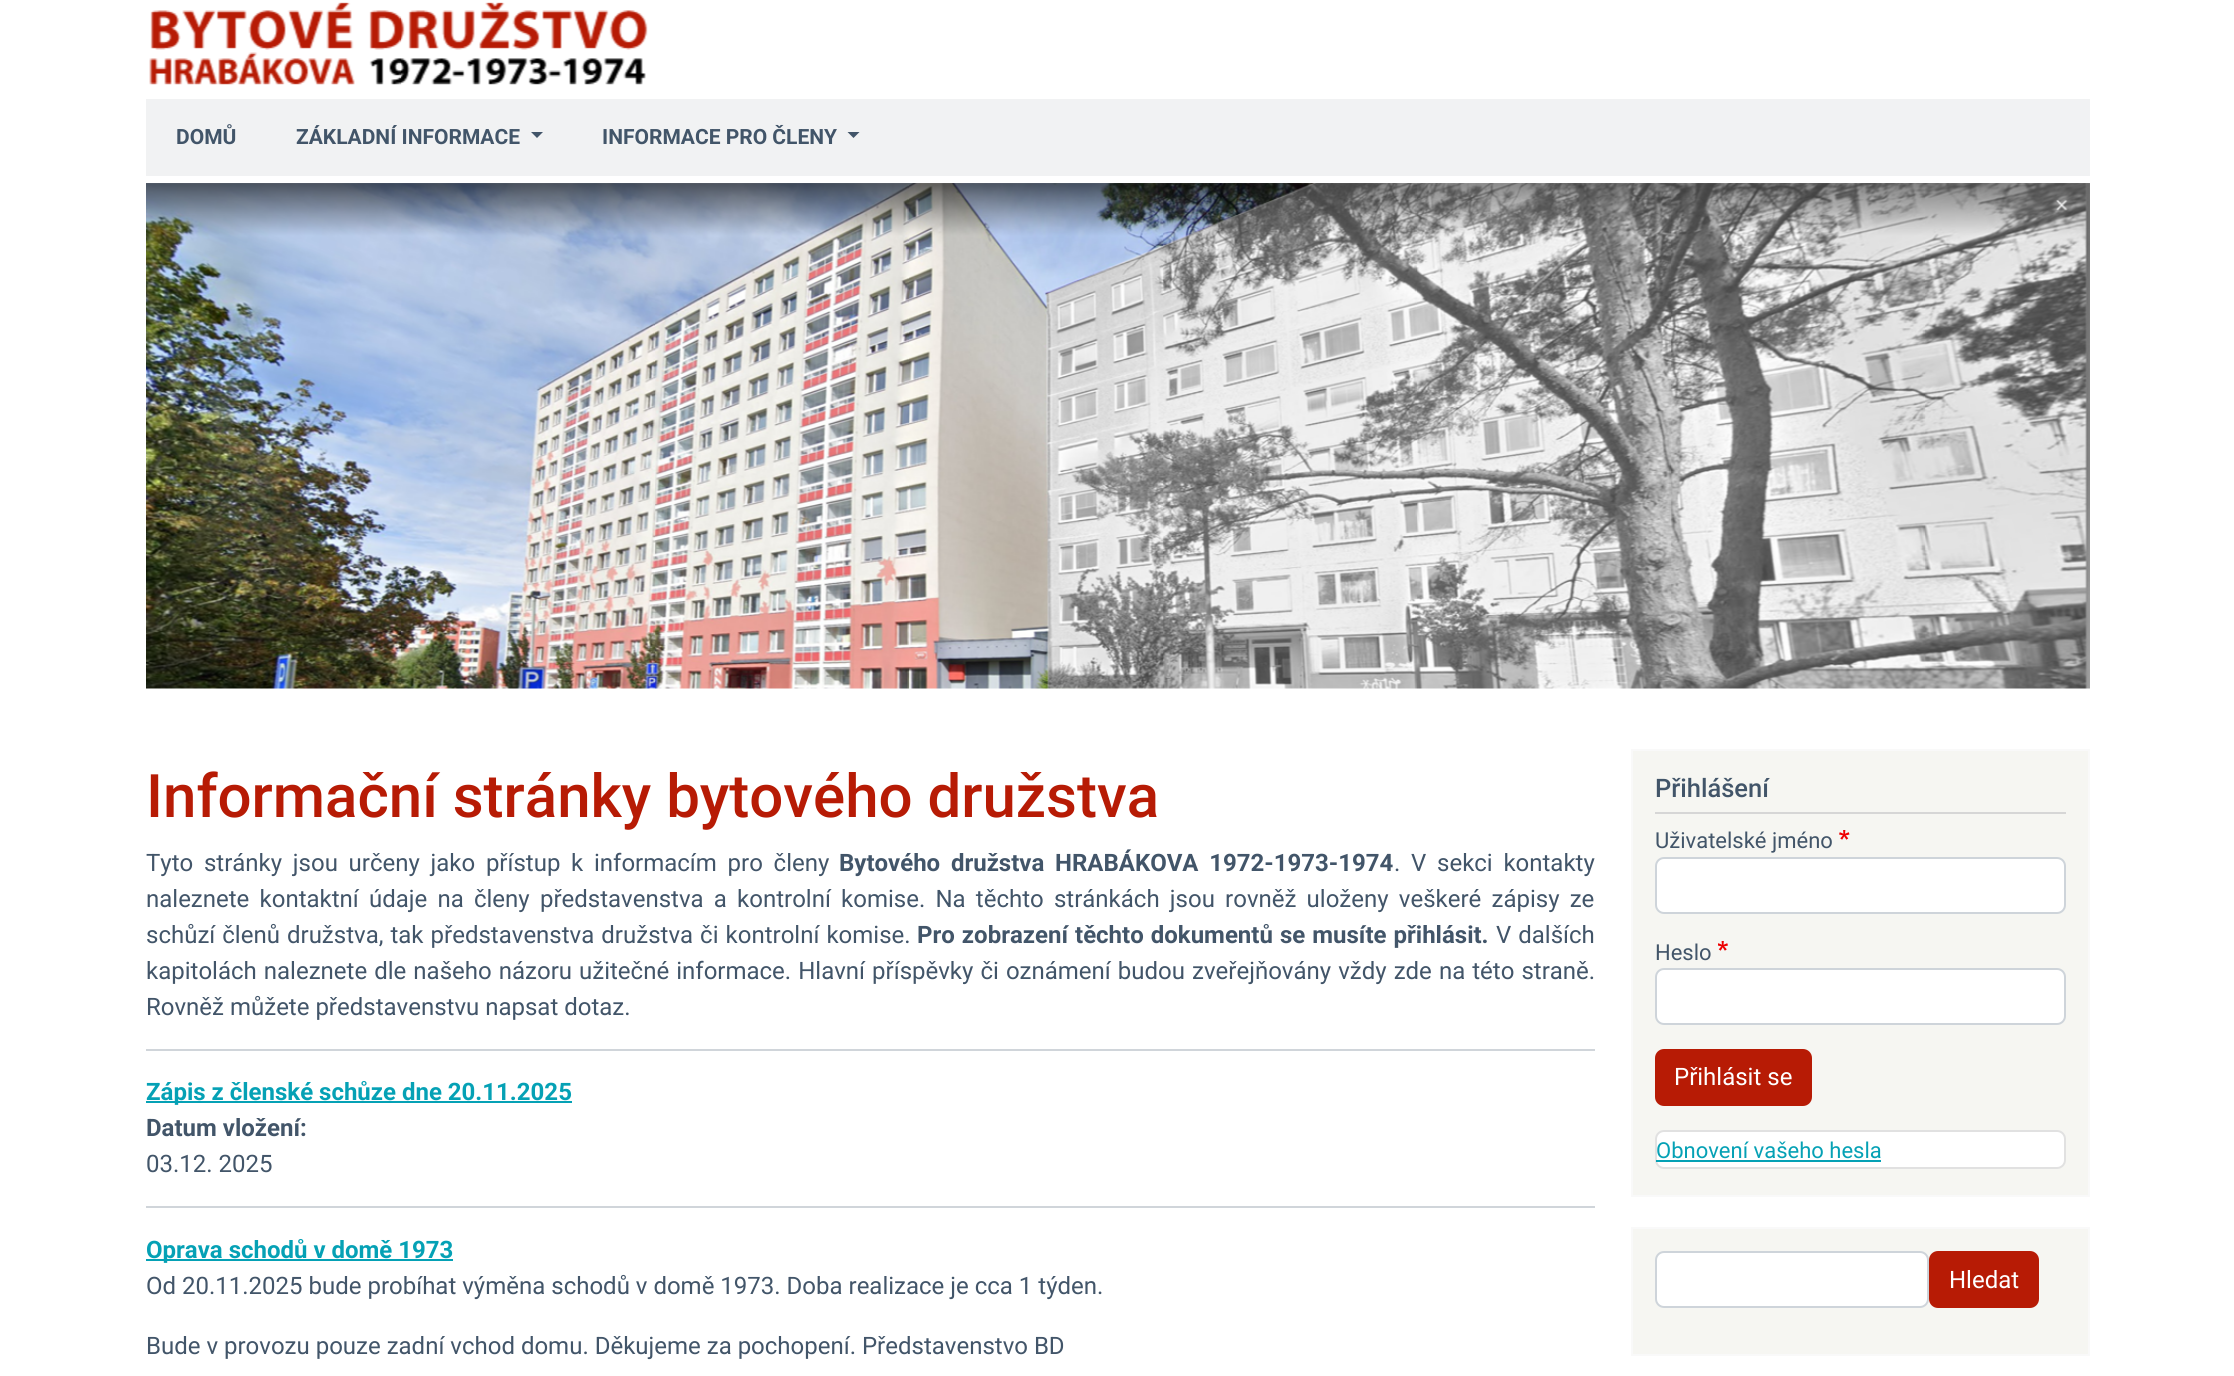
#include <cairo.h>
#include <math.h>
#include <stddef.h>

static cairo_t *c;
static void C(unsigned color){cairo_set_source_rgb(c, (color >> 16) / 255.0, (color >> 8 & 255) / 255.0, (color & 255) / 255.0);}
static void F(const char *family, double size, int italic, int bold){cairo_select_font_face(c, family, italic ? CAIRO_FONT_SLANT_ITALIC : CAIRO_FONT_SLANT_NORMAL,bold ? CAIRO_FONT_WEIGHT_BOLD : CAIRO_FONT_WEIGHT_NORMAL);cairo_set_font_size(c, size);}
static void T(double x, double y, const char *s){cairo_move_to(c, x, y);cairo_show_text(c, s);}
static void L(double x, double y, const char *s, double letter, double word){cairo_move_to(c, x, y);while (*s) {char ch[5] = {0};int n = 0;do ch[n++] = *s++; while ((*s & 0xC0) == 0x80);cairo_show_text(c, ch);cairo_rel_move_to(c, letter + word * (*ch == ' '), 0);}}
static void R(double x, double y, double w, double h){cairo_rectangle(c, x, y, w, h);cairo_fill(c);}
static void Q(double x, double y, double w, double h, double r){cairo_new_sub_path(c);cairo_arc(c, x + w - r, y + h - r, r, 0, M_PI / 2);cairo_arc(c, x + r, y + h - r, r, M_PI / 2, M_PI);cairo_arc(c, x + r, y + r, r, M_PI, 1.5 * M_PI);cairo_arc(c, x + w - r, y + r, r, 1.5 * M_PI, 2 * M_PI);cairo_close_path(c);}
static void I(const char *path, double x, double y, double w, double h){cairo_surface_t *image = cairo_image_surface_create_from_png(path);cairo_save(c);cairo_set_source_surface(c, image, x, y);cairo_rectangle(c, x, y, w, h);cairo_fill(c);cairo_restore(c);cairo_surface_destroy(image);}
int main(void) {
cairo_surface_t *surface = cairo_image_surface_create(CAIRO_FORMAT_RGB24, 2234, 1376);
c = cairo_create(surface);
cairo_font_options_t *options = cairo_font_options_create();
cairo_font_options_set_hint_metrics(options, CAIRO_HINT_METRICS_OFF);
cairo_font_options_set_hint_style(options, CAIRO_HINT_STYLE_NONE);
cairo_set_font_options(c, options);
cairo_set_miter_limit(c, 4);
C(0xffffff);
cairo_paint(c);
I("1.png",149,2,499,83);
C(0xf1f2f3);
R(146,99,1944,77);
F("Roboto",21,0,1);
C(0x425569);
T(176,144,"DOMŮ");
T(296,144,"ZÁKLADNÍ INFORMACE");
cairo_new_path(c);
cairo_move_to(c,531,132);
cairo_line_to(c,543,132);
cairo_line_to(c,537,138);
cairo_close_path(c);
cairo_fill(c);
T(602,144,"INFORMACE PRO ČLENY");
cairo_new_path(c);
cairo_move_to(c,847.5,132);
cairo_line_to(c,859.5,132);
cairo_line_to(c,853.5,138);
cairo_close_path(c);
cairo_fill(c);
I("2.png",146,183,1944,506);
F("Roboto Medium",60,0,0);
C(0xb71b05);
T(146,817,"Informační stránky bytového družstva");
F("Roboto",24,0,0);
C(0x425569);
L(146,871,"Tyto stránky jsou určeny jako přístup k informacím pro členy",0,4.75);
F("Roboto",24,0,1);
L(839,871,"Bytového družstva HRABÁKOVA 1972-1973-1974",0,4.75);
F("Roboto",24,0,0);
L(1394,871,". V sekci kontakty",0,4.75);
L(146,907,"naleznete kontaktní údaje na členy představenstva a kontrolní komise. Na těchto stránkách jsou rovněž uloženy veškeré zápisy ze",0,4.25);
L(146,943,"schůzí členů družstva, tak představenstva družstva či kontrolní komise.",0,1.1);
F("Roboto",24,0,1);
L(917,943,"Pro zobrazení těchto dokumentů se musíte přihlásit.",0,1.1);
F("Roboto",24,0,0);
L(1496,943,"V dalších",0,1);
L(146,979,"kapitolách naleznete dle našeho názoru užitečné informace. Hlavní příspěvky či oznámení budou zveřejňovány vždy zde na této straně.",0,1.1);
T(146,1015,"Rovněž můžete představenstvu napsat dotaz.");
C(0xd0d5da);
R(146,1049,1449,2);
C(0x05a1b5);
R(146,1101,426,2);
F("Roboto",24,0,1);
T(146,1100,"Zápis z členské schůze dne 20.11.2025");
C(0x425569);
T(146,1136,"Datum vložení:");
F("Roboto",24,0,0);
T(146,1172,"03.12. 2025");
C(0xd0d5da);
R(146,1206,1449,2);
C(0x05a1b5);
R(146,1259,307,2);
F("Roboto",24,0,1);
T(146,1258,"Oprava schodů v domě 1973");
F("Roboto",24,0,0);
C(0x425569);
T(146,1294,"Od 20.11.2025 bude probíhat výměna schodů v domě 1973. Doba realizace je cca 1 týden.");
T(146,1354,"Bude v provozu pouze zadní vchod domu. Děkujeme za pochopení. Představenstvo BD");
C(0xf6f6f2);
cairo_rectangle(c,1632,750,457,446);
cairo_fill_preserve(c);
C(0xf9f9f9);
cairo_stroke(c);
C(0xd6d6d6);
R(1655,812,411,2);
F("Roboto Medium",25.5,0,0);
C(0x425569);
T(1655,797,"Přihlášení");
F("Roboto",22,0,0);
T(1655,848,"Uživatelské jméno");
I("3.png",1839,830,11,10);
C(0xffffff);
Q(1656,858,409,55,8);
cairo_fill_preserve(c);
C(0xced4da);
cairo_stroke(c);
C(0x425569);
T(1655,960,"Heslo");
I("4.png",1718,941,10,10);
C(0xffffff);
Q(1656,969,409,55,8);
cairo_fill_preserve(c);
C(0xced4da);
cairo_stroke(c);
C(0xb71b05);
Q(1656,1050,155,55,8);
cairo_fill_preserve(c);
cairo_stroke(c);
F("Roboto",24,0,0);
C(0xffffff);
T(1674,1085,"Přihlásit se");
Q(1655,1130,411,39,9);
cairo_fill(c);
Q(1656,1131,409,37,8);
cairo_set_source_rgba(c,0,0,0,0.12);
cairo_stroke(c);
F("Roboto",22,0,0);
C(0x05a1b5);
T(1656,1158,"Obnovení vašeho hesla");
R(1656,1160,225,2);
C(0xf6f6f2);
cairo_rectangle(c,1632,1228,457,127);
cairo_fill_preserve(c);
C(0xf9f9f9);
cairo_stroke(c);
C(0xffffff);
Q(1656,1252,272,55,8);
cairo_fill_preserve(c);
C(0xced4da);
cairo_stroke(c);
C(0xb71b05);
Q(1930,1252,108,55,8);
cairo_fill_preserve(c);
cairo_stroke(c);
F("Roboto",24,0,0);
C(0xffffff);
T(1949,1288,"Hledat");
cairo_surface_write_to_png(surface, "o.png");
cairo_font_options_destroy(options);
cairo_destroy(c);
cairo_surface_destroy(surface);
return 0;
}
